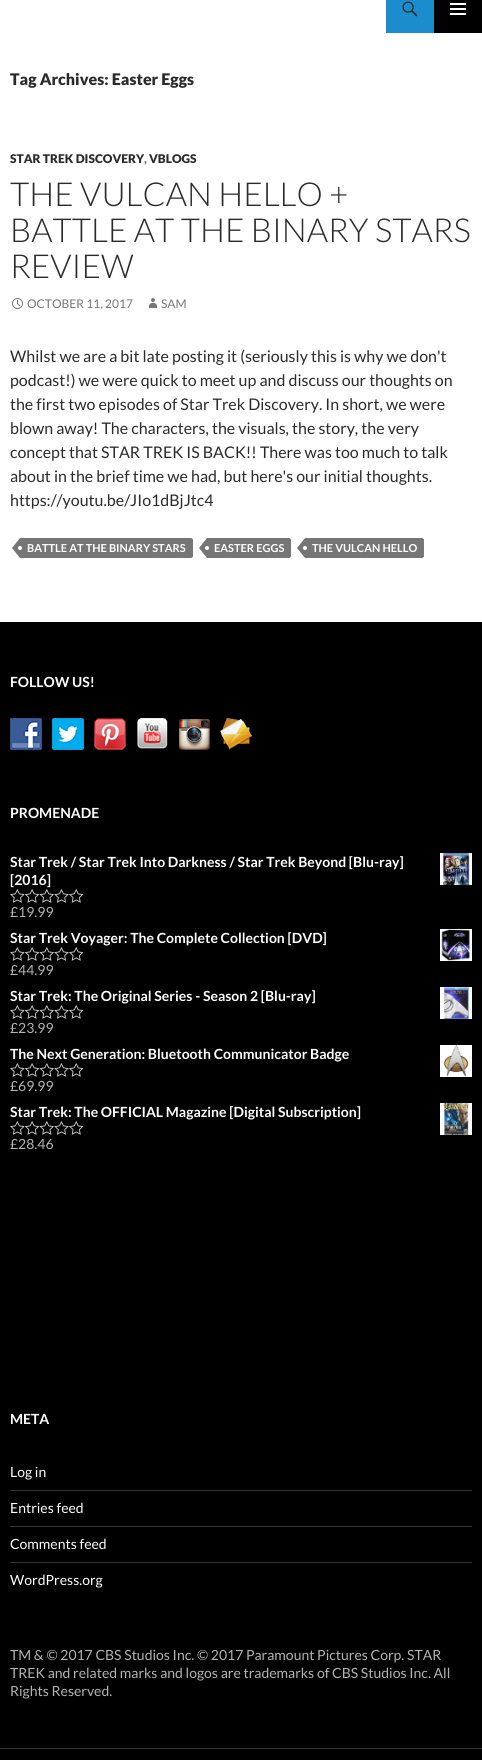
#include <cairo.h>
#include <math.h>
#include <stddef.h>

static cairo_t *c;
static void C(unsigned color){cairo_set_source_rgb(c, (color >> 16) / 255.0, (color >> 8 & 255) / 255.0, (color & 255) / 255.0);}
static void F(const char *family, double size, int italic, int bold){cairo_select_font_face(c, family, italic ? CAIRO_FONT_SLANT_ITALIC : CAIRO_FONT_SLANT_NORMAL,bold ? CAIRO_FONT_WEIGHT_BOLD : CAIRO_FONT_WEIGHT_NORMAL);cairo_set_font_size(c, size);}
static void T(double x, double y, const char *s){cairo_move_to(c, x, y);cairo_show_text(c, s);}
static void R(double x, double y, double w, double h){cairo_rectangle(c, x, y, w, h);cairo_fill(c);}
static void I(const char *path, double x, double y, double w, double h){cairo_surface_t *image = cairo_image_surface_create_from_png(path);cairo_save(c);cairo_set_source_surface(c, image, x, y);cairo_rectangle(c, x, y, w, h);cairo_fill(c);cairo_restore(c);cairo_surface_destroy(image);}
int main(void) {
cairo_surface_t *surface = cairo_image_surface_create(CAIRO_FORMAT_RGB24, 482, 1760);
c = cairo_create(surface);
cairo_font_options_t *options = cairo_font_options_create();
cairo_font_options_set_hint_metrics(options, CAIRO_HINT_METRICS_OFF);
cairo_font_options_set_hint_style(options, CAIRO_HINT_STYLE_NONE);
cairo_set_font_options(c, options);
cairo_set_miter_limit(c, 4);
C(0xffffff);
cairo_paint(c);
C(0x1b8dcd);
R(386,0,48,33);
I("1.png",402,1,16,16);
C(0x000000);
R(434,0,48,33);
I("2.png",450,3,16,12);
F("Lato Black",16,0,0);
C(0x2b2b2b);
T(10,85,"Tag Archives: Easter Eggs");
F("Lato Black",12,0,0);
T(10,163,"STAR TREK DISCOVERY");
C(0x767676);
T(144,163,",");
C(0x2b2b2b);
T(149,163,"VBLOGS");
F("Lato Light",33,0,0);
T(10,206,"THE VULCAN HELLO +");
T(10,242,"BATTLE AT THE BINARY STARS");
T(10,278,"REVIEW");
I("3.png",12,298,11,11);
F("Lato",12,0,0);
C(0x767676);
T(27,308,"OCTOBER 11, 2017");
I("4.png",149,298,8,10);
T(161,308,"SAM");
F("Lato",16,0,0);
C(0x2b2b2b);
T(10,362,"Whilst we are a bit late posting it (seriously this is why we don't");
T(10,386,"podcast!) we were quick to meet up and discuss our thoughts on");
T(10,410,"the first two episodes of Star Trek Discovery. In short, we were");
T(10,434,"blown away! The characters, the visuals, the story, the very");
T(10,458,"concept that STAR TREK IS BACK!! There was too much to talk");
T(10,482,"about in the brief time we had, but here's our initial thoughts.");
T(10,506,"https://youtu.be/JIo1dBjJtc4");
C(0x767676);
cairo_new_path(c);
cairo_move_to(c,20,538);
cairo_line_to(c,191,538);
cairo_curve_to(c,192,538,193,539,193,540);
cairo_line_to(c,193,556);
cairo_curve_to(c,193,557,192,558,191,558);
cairo_line_to(c,20,558);
cairo_close_path(c);
cairo_fill(c);
cairo_new_path(c);
cairo_move_to(c,20,538);
cairo_line_to(c,20,558);
cairo_line_to(c,12,548);
cairo_close_path(c);
cairo_fill(c);
F("Lato",11,0,1);
C(0xffffff);
T(27,552,"BATTLE AT THE BINARY STARS");
cairo_new_path(c);
cairo_arc(c,20,548,2,0,2 * M_PI);
cairo_fill(c);
C(0x767676);
cairo_new_path(c);
cairo_move_to(c,207,538);
cairo_line_to(c,289,538);
cairo_curve_to(c,290,538,291,539,291,540);
cairo_line_to(c,291,556);
cairo_curve_to(c,291,557,290,558,289,558);
cairo_line_to(c,207,558);
cairo_close_path(c);
cairo_fill(c);
cairo_new_path(c);
cairo_move_to(c,207,538);
cairo_line_to(c,207,558);
cairo_line_to(c,199,548);
cairo_close_path(c);
cairo_fill(c);
C(0xffffff);
T(214,552,"EASTER EGGS");
cairo_new_path(c);
cairo_arc(c,207,548,2,0,2 * M_PI);
cairo_fill(c);
C(0x767676);
cairo_new_path(c);
cairo_move_to(c,305,538);
cairo_line_to(c,422,538);
cairo_curve_to(c,423,538,424,539,424,540);
cairo_line_to(c,424,556);
cairo_curve_to(c,424,557,423,558,422,558);
cairo_line_to(c,305,558);
cairo_close_path(c);
cairo_fill(c);
cairo_new_path(c);
cairo_move_to(c,305,538);
cairo_line_to(c,305,558);
cairo_line_to(c,297,548);
cairo_close_path(c);
cairo_fill(c);
C(0xffffff);
T(312,552,"THE VULCAN HELLO");
cairo_new_path(c);
cairo_arc(c,305,548,2,0,2 * M_PI);
cairo_fill(c);
C(0x000000);
R(0,622,482,1138);
F("Lato",14,0,1);
C(0xffffff);
T(10,687,"FOLLOW US!");
I("5.png",10,718,32,32);
I("6.png",52,718,32,32);
I("7.png",94,718,32,32);
I("8.png",137,718,31,31);
I("9.png",179,719,31,31);
I("10.png",220,718,32,32);
T(10,818,"PROMENADE");
T(10,867,"Star Trek / Star Trek Into Darkness / Star Trek Beyond [Blu-ray]");
I("11.png",440,853,32,32);
T(10,885,"[2016]");
I("12.png",10,889,74,14);
F("Lato",14,0,0);
C(0xb3b3b3);
T(10,917,"£19.99");
F("Lato",14,0,1);
C(0xffffff);
T(10,943,"Star Trek Voyager: The Complete Collection [DVD]");
I("13.png",440,929,32,32);
I("12.png",10,947,74,14);
F("Lato",14,0,0);
C(0xb3b3b3);
T(10,975,"£44.99");
F("Lato",14,0,1);
C(0xffffff);
T(10,1001,"Star Trek: The Original Series - Season 2 [Blu-ray]");
I("14.png",440,987,32,32);
I("12.png",10,1005,74,14);
F("Lato",14,0,0);
C(0xb3b3b3);
T(10,1033,"£23.99");
F("Lato",14,0,1);
C(0xffffff);
T(10,1059,"The Next Generation: Bluetooth Communicator Badge");
I("15.png",440,1045,32,32);
I("12.png",10,1063,74,14);
F("Lato",14,0,0);
C(0xb3b3b3);
T(10,1091,"£69.99");
F("Lato",14,0,1);
C(0xffffff);
T(10,1117,"Star Trek: The OFFICIAL Magazine [Digital Subscription]");
I("16.png",440,1103,32,32);
I("12.png",10,1121,74,14);
F("Lato",14,0,0);
C(0xb3b3b3);
T(10,1149,"£28.46");
F("Lato",14,0,1);
C(0xffffff);
T(10,1424,"META");
F("Lato",14,0,0);
T(10,1477,"Log in");
C(0x333333);
R(10,1490,462,1);
C(0xffffff);
T(10,1513,"Entries feed");
C(0x333333);
R(10,1526,462,1);
C(0xffffff);
T(10,1549,"Comments feed");
C(0x333333);
R(10,1562,462,1);
C(0xffffff);
T(10,1585,"WordPress.org");
C(0xb3b3b3);
T(10,1660,"TM & © 2017 CBS Studios Inc. © 2017 Paramount Pictures Corp. STAR");
T(10,1678,"TREK and related marks and logos are trademarks of CBS Studios Inc. All");
T(10,1696,"Rights Reserved.");
C(0x333333);
R(0,1748,482,1);
cairo_surface_write_to_png(surface, "o.png");
cairo_font_options_destroy(options);
cairo_destroy(c);
cairo_surface_destroy(surface);
return 0;
}
